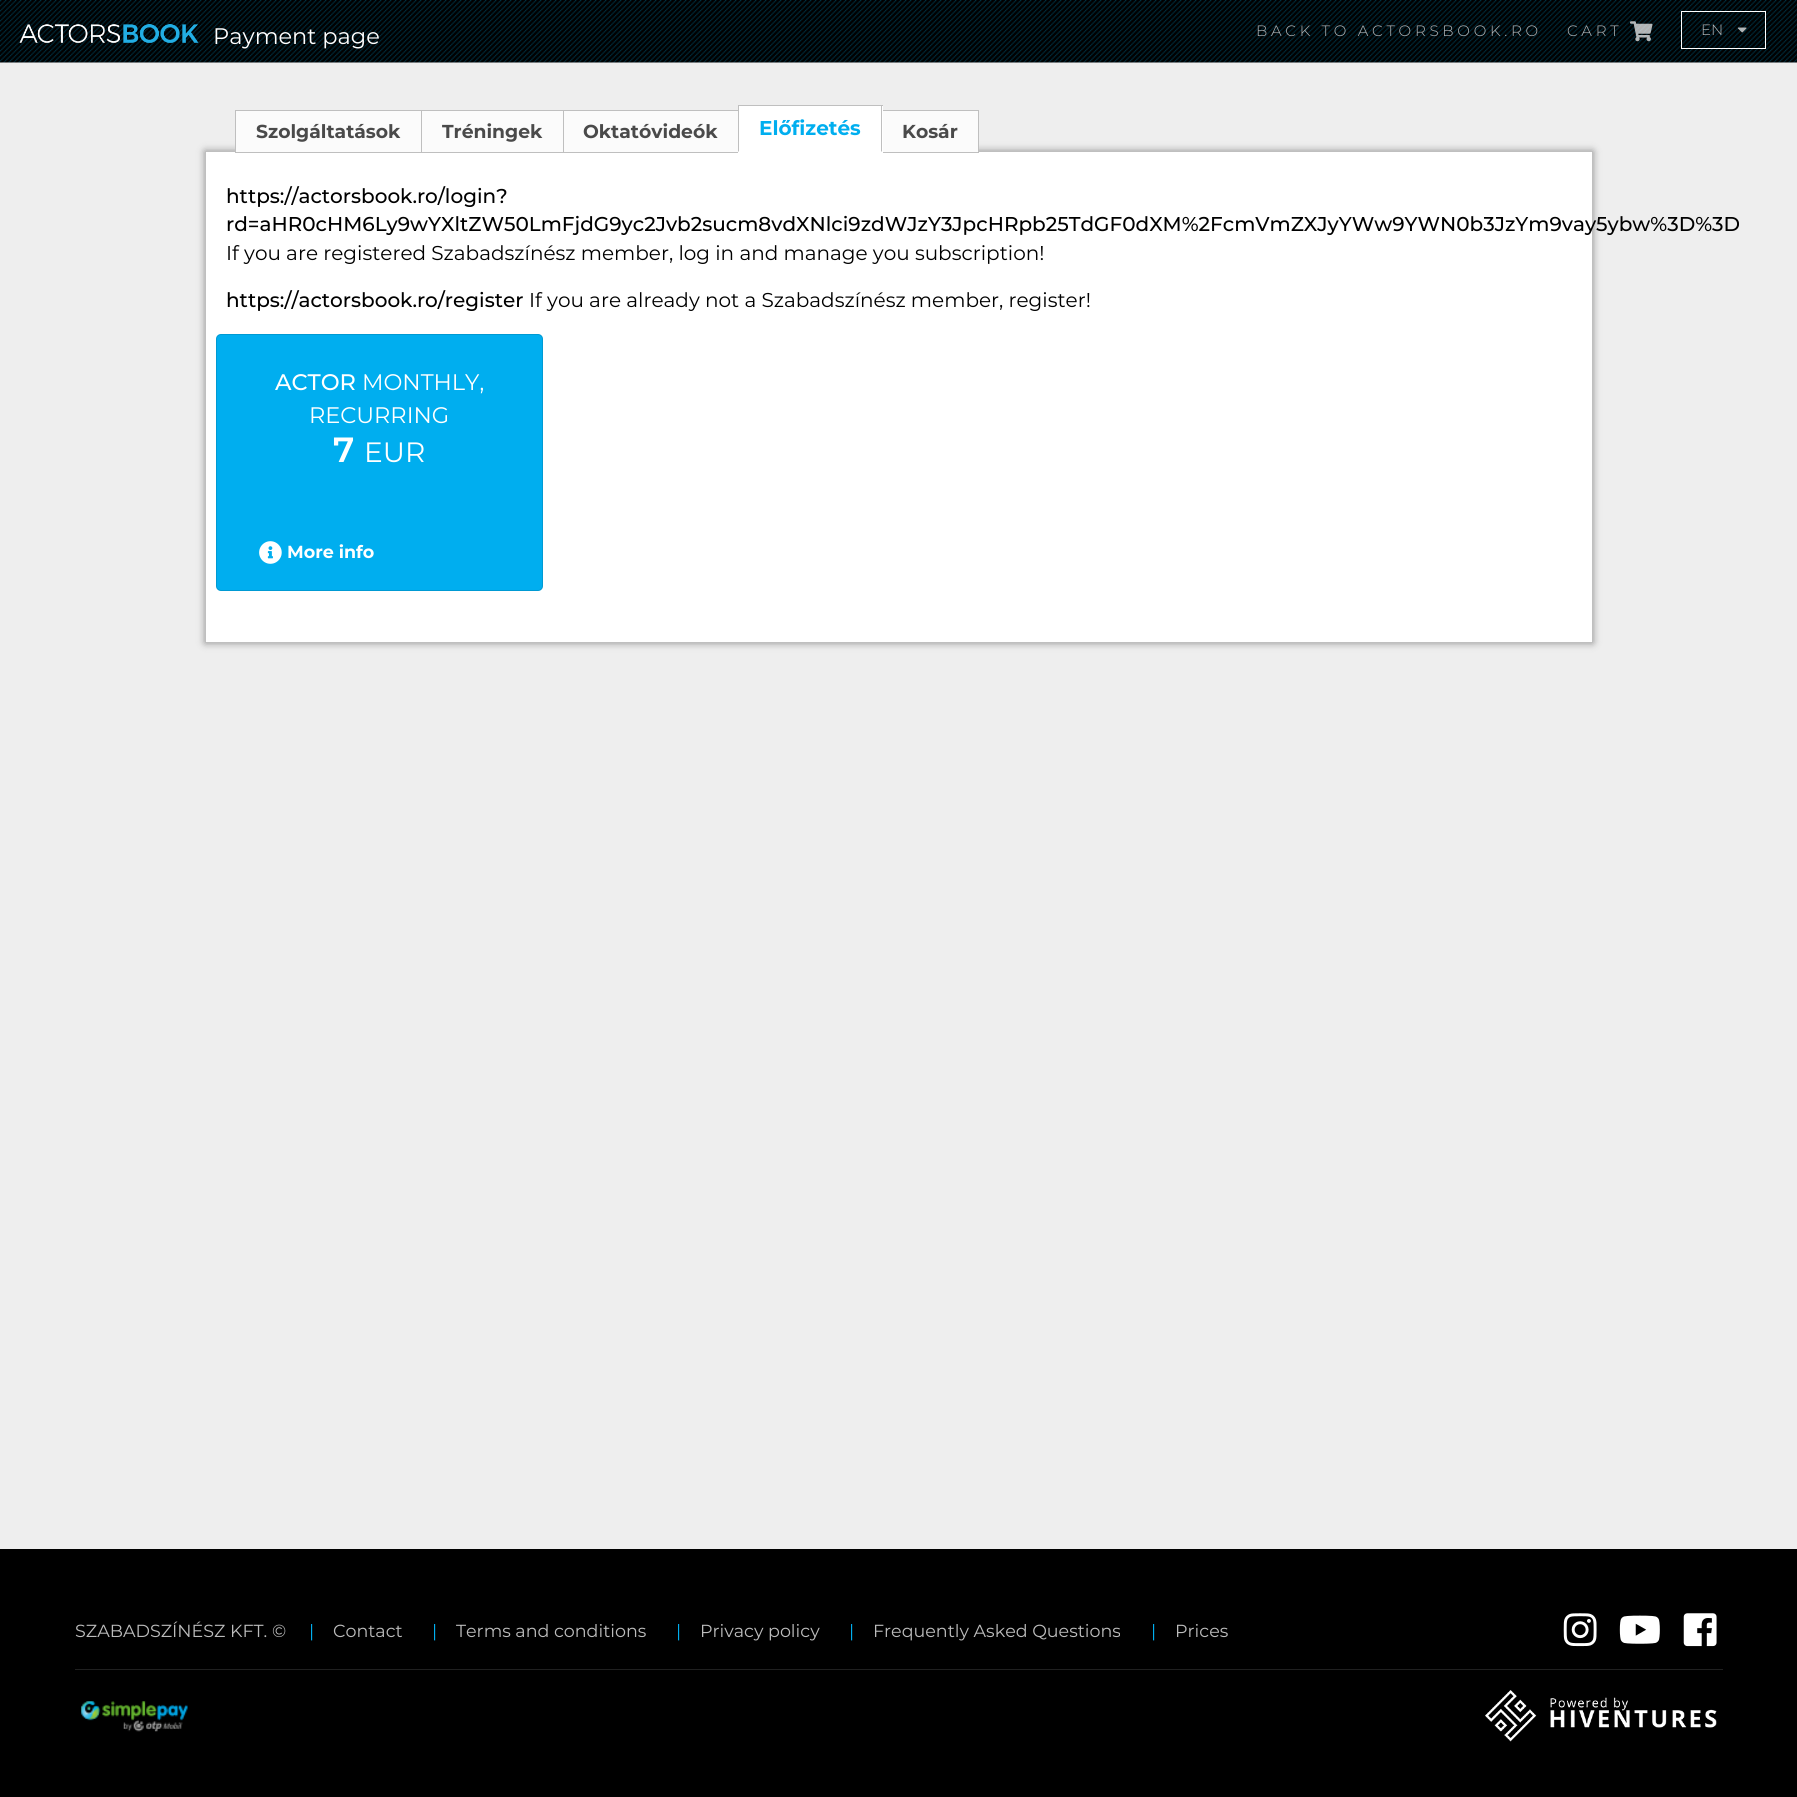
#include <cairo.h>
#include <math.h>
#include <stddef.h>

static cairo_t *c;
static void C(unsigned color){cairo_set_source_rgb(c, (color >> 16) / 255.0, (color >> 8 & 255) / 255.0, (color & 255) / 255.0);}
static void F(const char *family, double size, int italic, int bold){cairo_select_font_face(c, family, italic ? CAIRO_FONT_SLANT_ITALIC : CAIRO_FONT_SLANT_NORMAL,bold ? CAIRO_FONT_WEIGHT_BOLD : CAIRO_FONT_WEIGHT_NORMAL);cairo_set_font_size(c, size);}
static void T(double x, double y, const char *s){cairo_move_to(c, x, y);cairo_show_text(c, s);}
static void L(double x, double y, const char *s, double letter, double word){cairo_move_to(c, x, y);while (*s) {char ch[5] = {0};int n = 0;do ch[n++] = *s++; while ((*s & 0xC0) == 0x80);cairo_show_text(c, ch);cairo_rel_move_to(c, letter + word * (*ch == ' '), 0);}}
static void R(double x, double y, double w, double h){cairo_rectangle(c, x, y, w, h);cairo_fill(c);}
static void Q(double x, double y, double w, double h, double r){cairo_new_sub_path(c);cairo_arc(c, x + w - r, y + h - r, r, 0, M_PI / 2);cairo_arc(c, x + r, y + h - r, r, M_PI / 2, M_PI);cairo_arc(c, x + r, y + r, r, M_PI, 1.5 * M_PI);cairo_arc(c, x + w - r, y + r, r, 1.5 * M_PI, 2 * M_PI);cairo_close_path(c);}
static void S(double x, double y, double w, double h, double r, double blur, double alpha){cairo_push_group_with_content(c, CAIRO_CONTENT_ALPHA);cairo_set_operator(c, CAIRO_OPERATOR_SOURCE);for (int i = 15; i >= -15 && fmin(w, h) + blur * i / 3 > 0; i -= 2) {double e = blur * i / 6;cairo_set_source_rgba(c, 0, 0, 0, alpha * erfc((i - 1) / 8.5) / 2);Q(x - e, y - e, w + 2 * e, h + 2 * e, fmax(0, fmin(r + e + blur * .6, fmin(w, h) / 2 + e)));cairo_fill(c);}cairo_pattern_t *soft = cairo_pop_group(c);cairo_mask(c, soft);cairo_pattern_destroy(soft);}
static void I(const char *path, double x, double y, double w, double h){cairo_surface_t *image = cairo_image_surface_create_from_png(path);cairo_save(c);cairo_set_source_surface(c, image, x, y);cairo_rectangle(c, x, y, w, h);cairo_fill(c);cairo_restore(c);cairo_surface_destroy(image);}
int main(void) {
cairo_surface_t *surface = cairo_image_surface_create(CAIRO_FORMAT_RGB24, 1797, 1797);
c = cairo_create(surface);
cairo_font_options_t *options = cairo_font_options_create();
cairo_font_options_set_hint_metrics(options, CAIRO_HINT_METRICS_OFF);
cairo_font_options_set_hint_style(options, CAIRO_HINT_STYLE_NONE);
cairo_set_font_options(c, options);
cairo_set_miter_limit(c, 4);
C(0xeeeeee);
cairo_paint(c);
I("1.png",0,0,1797,63);
I("2.png",19,24,180,19);
F("Montserrat",22.5,0,0);
C(0xffffff);
T(213,44,"Payment page");
F("Montserrat Light",15,0,0);
C(0xb3b6b8);
L(1256,36,"BACK TO ACTORSBOOK.RO",3.75,0);
L(1567,36,"CART",3.75,0);
I("3.png",1630,21,23,21);
cairo_rectangle(c,1681.5,11.5,84,37);
C(0xffffff);
cairo_set_line_width(c,1);
cairo_stroke(c);
C(0xb3b6b8);
T(1701,35,"EN");
I("4.png",1737,27,10,6);
C(0x000000);
S(205,151,1388,492,0,4,.4);
C(0xffffff);
cairo_rectangle(c,205.5,151.5,1387,491);
cairo_fill_preserve(c);
C(0xbfbfbf);
cairo_stroke(c);
C(0xfbfbfb);
R(236,111,185,41);
cairo_rectangle(c,235.5,110.5,187,42);
C(0xbfbfbf);
cairo_stroke(c);
F("Montserrat",18.75,0,1);
C(0x4a4a4a);
T(256,138,"Szolgáltatások");
C(0xfbfbfb);
cairo_rectangle(c,421.5,110.5,142,42);
cairo_fill_preserve(c);
C(0xbfbfbf);
cairo_stroke(c);
C(0x4a4a4a);
T(442,138,"Tréningek");
C(0xfbfbfb);
cairo_rectangle(c,563.5,110.5,175,42);
cairo_fill_preserve(c);
C(0xbfbfbf);
cairo_stroke(c);
C(0x4a4a4a);
T(583,138,"Oktatóvideók");
C(0xfbfbfb);
R(883,111,95,41);
cairo_rectangle(c,881.5,110.5,97,42);
C(0xbfbfbf);
cairo_stroke(c);
C(0xffffff);
R(738,106,145,47);
C(0xbfbfbf);
R(738,105,145,1);
cairo_new_path(c);
cairo_move_to(c,882,105);
cairo_line_to(c,882,152);
cairo_line_to(c,881,151);
cairo_line_to(c,881,106);
cairo_close_path(c);
cairo_fill(c);
cairo_new_path(c);
cairo_move_to(c,738,152);
cairo_line_to(c,738,105);
cairo_line_to(c,739,106);
cairo_line_to(c,739,151);
cairo_close_path(c);
cairo_fill(c);
F("Montserrat",20,0,1);
C(0x00aeef);
T(759,135,"Előfizetés");
F("Montserrat",18.75,0,1);
C(0x4a4a4a);
T(902,138,"Kosár");
F("Montserrat Medium",20,0,0);
C(0x000000);
T(226,203,"https://actorsbook.ro/login?");
T(226,231,"rd=aHR0cHM6Ly9wYXltZW50LmFjdG9yc2Jvb2sucm8vdXNlci9zdWJzY3JpcHRpb25TdGF0dXM%2FcmVmZXJyYWw9YWN0b3JzYm9vay5ybw%3D%3D");
F("Montserrat",20,0,0);
T(226,260,"If you are registered Szabadszínész member, log in and manage you subscription!");
F("Montserrat Medium",20,0,0);
T(226,307,"https://actorsbook.ro/register");
F("Montserrat",20,0,0);
T(529,307,"If you are already not a Szabadszínész member, register!");
C(0x00aeef);
Q(216,334,327,257,5);
cairo_fill(c);
Q(216.5,334.5,326,256,4.5);
cairo_set_source_rgba(c,0,0,0,0.12);
cairo_stroke(c);
F("Montserrat Medium",22.5,0,0);
C(0xffffff);
T(275,390,"ACTOR");
F("Montserrat",22.5,0,0);
T(362,390,"MONTHLY,");
T(309,423,"RECURRING");
F("Montserrat SemiBold",35,0,0);
T(333,462,"7");
F("Montserrat",28,0,0);
T(364,462,"EUR");
I("5.png",259,541,23,23);
F("Montserrat",17.5,0,1);
T(287,558,"More info");
C(0x000000);
R(0,1549,1797,248);
C(0x202020);
R(75,1669,1648,1);
F("Montserrat",17.5,0,0);
C(0xbcbcbc);
T(75,1637,"SZABADSZÍNÉSZ KFT. ©");
C(0x00aeef);
T(309,1637,"|");
C(0xbcbcbc);
T(333,1637,"Contact");
C(0x00aeef);
T(432,1637,"|");
C(0xbcbcbc);
T(456,1637,"Terms and conditions");
C(0x00aeef);
T(676,1637,"|");
C(0xbcbcbc);
T(700,1637,"Privacy policy");
C(0x00aeef);
T(849,1637,"|");
C(0xbcbcbc);
T(873,1637,"Frequently Asked Questions");
C(0x00aeef);
T(1151,1637,"|");
C(0xbcbcbc);
T(1175,1637,"Prices");
I("6.png",1563,1613,34,34);
I("7.png",1619,1615,41,29);
I("8.png",1683,1613,34,34);
I("9.png",81,1701,107,31);
I("10.png",1485,1690,232,52);
cairo_surface_write_to_png(surface, "o.png");
cairo_font_options_destroy(options);
cairo_destroy(c);
cairo_surface_destroy(surface);
return 0;
}
